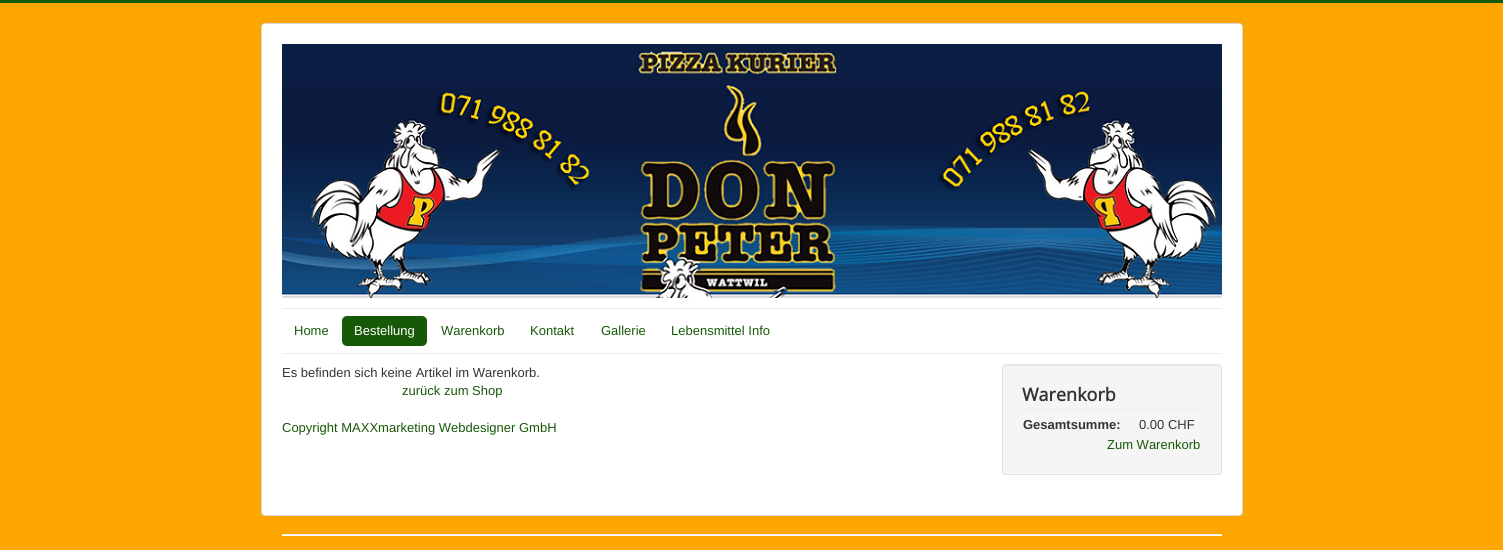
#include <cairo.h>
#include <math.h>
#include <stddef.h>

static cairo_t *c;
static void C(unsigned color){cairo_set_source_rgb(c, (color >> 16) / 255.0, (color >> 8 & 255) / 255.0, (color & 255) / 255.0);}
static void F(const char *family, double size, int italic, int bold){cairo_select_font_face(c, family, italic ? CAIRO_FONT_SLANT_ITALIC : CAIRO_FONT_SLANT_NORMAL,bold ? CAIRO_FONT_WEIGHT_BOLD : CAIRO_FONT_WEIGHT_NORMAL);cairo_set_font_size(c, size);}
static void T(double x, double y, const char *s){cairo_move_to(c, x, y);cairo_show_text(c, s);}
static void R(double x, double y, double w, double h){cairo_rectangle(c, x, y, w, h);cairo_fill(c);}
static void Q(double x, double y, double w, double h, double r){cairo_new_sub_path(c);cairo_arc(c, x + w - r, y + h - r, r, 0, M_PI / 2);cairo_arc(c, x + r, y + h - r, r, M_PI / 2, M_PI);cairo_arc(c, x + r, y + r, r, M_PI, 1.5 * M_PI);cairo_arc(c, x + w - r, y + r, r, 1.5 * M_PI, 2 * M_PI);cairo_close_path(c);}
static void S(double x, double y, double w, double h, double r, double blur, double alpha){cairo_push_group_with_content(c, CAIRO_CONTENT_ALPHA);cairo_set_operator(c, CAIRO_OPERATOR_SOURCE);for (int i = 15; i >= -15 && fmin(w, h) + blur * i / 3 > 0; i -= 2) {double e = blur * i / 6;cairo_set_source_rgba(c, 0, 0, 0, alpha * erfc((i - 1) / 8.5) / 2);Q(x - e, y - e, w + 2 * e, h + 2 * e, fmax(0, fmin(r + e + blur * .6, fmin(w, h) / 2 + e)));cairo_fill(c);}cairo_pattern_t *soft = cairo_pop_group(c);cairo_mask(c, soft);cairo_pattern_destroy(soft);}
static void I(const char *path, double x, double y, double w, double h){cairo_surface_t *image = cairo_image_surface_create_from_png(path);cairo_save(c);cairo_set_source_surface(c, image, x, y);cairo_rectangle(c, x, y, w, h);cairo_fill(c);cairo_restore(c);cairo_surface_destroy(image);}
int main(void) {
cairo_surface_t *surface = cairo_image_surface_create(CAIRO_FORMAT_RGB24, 1503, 550);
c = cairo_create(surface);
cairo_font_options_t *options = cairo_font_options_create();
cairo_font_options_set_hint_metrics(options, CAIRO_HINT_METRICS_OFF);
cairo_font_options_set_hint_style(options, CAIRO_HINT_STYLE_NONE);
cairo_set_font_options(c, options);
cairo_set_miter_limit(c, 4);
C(0xffa600);
cairo_paint(c);
C(0x165907);
R(0,0,1503,3);
C(0x000000);
S(261,23,982,493,4,3,.05);
C(0xffffff);
Q(261,23,982,493,4);
cairo_fill(c);
Q(261.5,23.5,981,492,3.5);
cairo_set_source_rgba(c,0,0,0,0.15);
cairo_set_line_width(c,1);
cairo_stroke(c);
I("1.png",282,44,940,254);
C(0xececec);
R(282,308,940,1);
R(282,353,940,1);
F("Liberation Sans",13,0,0);
C(0x165907);
T(294,335,"Home");
Q(342,316,85,30,5);
cairo_fill(c);
C(0xffffff);
T(354,335,"Bestellung");
C(0x165907);
T(441,335,"Warenkorb");
T(530,335,"Kontakt");
T(601,335,"Gallerie");
T(671,335,"Lebensmittel Info");
C(0x333333);
T(282,377,"Es befinden sich keine Artikel im Warenkorb.");
C(0x165907);
T(402,395,"zurück zum Shop");
T(282,432,"Copyright MAXXmarketing Webdesigner GmbH");
C(0xf5f5f5);
Q(1002,364,220,111,4);
cairo_fill(c);
C(0xe9e9e9);
cairo_new_path(c);
cairo_move_to(c,1006,366);
cairo_line_to(c,1218,366);
cairo_curve_to(c,1220,366,1221,367,1221,369);
cairo_line_to(c,1221,368);
cairo_curve_to(c,1221,366,1220,365,1218,365);
cairo_line_to(c,1006,365);
cairo_curve_to(c,1004,365,1003,366,1003,368);
cairo_line_to(c,1003,369);
cairo_curve_to(c,1003,367,1004,366,1006,366);
cairo_close_path(c);
cairo_fill(c);
Q(1002.5,364.5,219,110,3.5);
C(0xe3e3e3);
cairo_stroke(c);
C(0xeeeeee);
R(1022,409,180,1);
F("Open Sans",18,0,1);
C(0x333333);
T(1022,401,"Warenkorb");
F("Liberation Sans",13,0,1);
T(1023,429,"Gesamtsumme:");
F("Liberation Sans",13,0,0);
T(1139,429,"0.00 CHF");
C(0x165907);
T(1107,449,"Zum Warenkorb");
C(0xeeeeee);
R(282,534,940,1);
C(0xffffff);
R(282,535,940,1);
cairo_surface_write_to_png(surface, "o.png");
cairo_font_options_destroy(options);
cairo_destroy(c);
cairo_surface_destroy(surface);
return 0;
}
